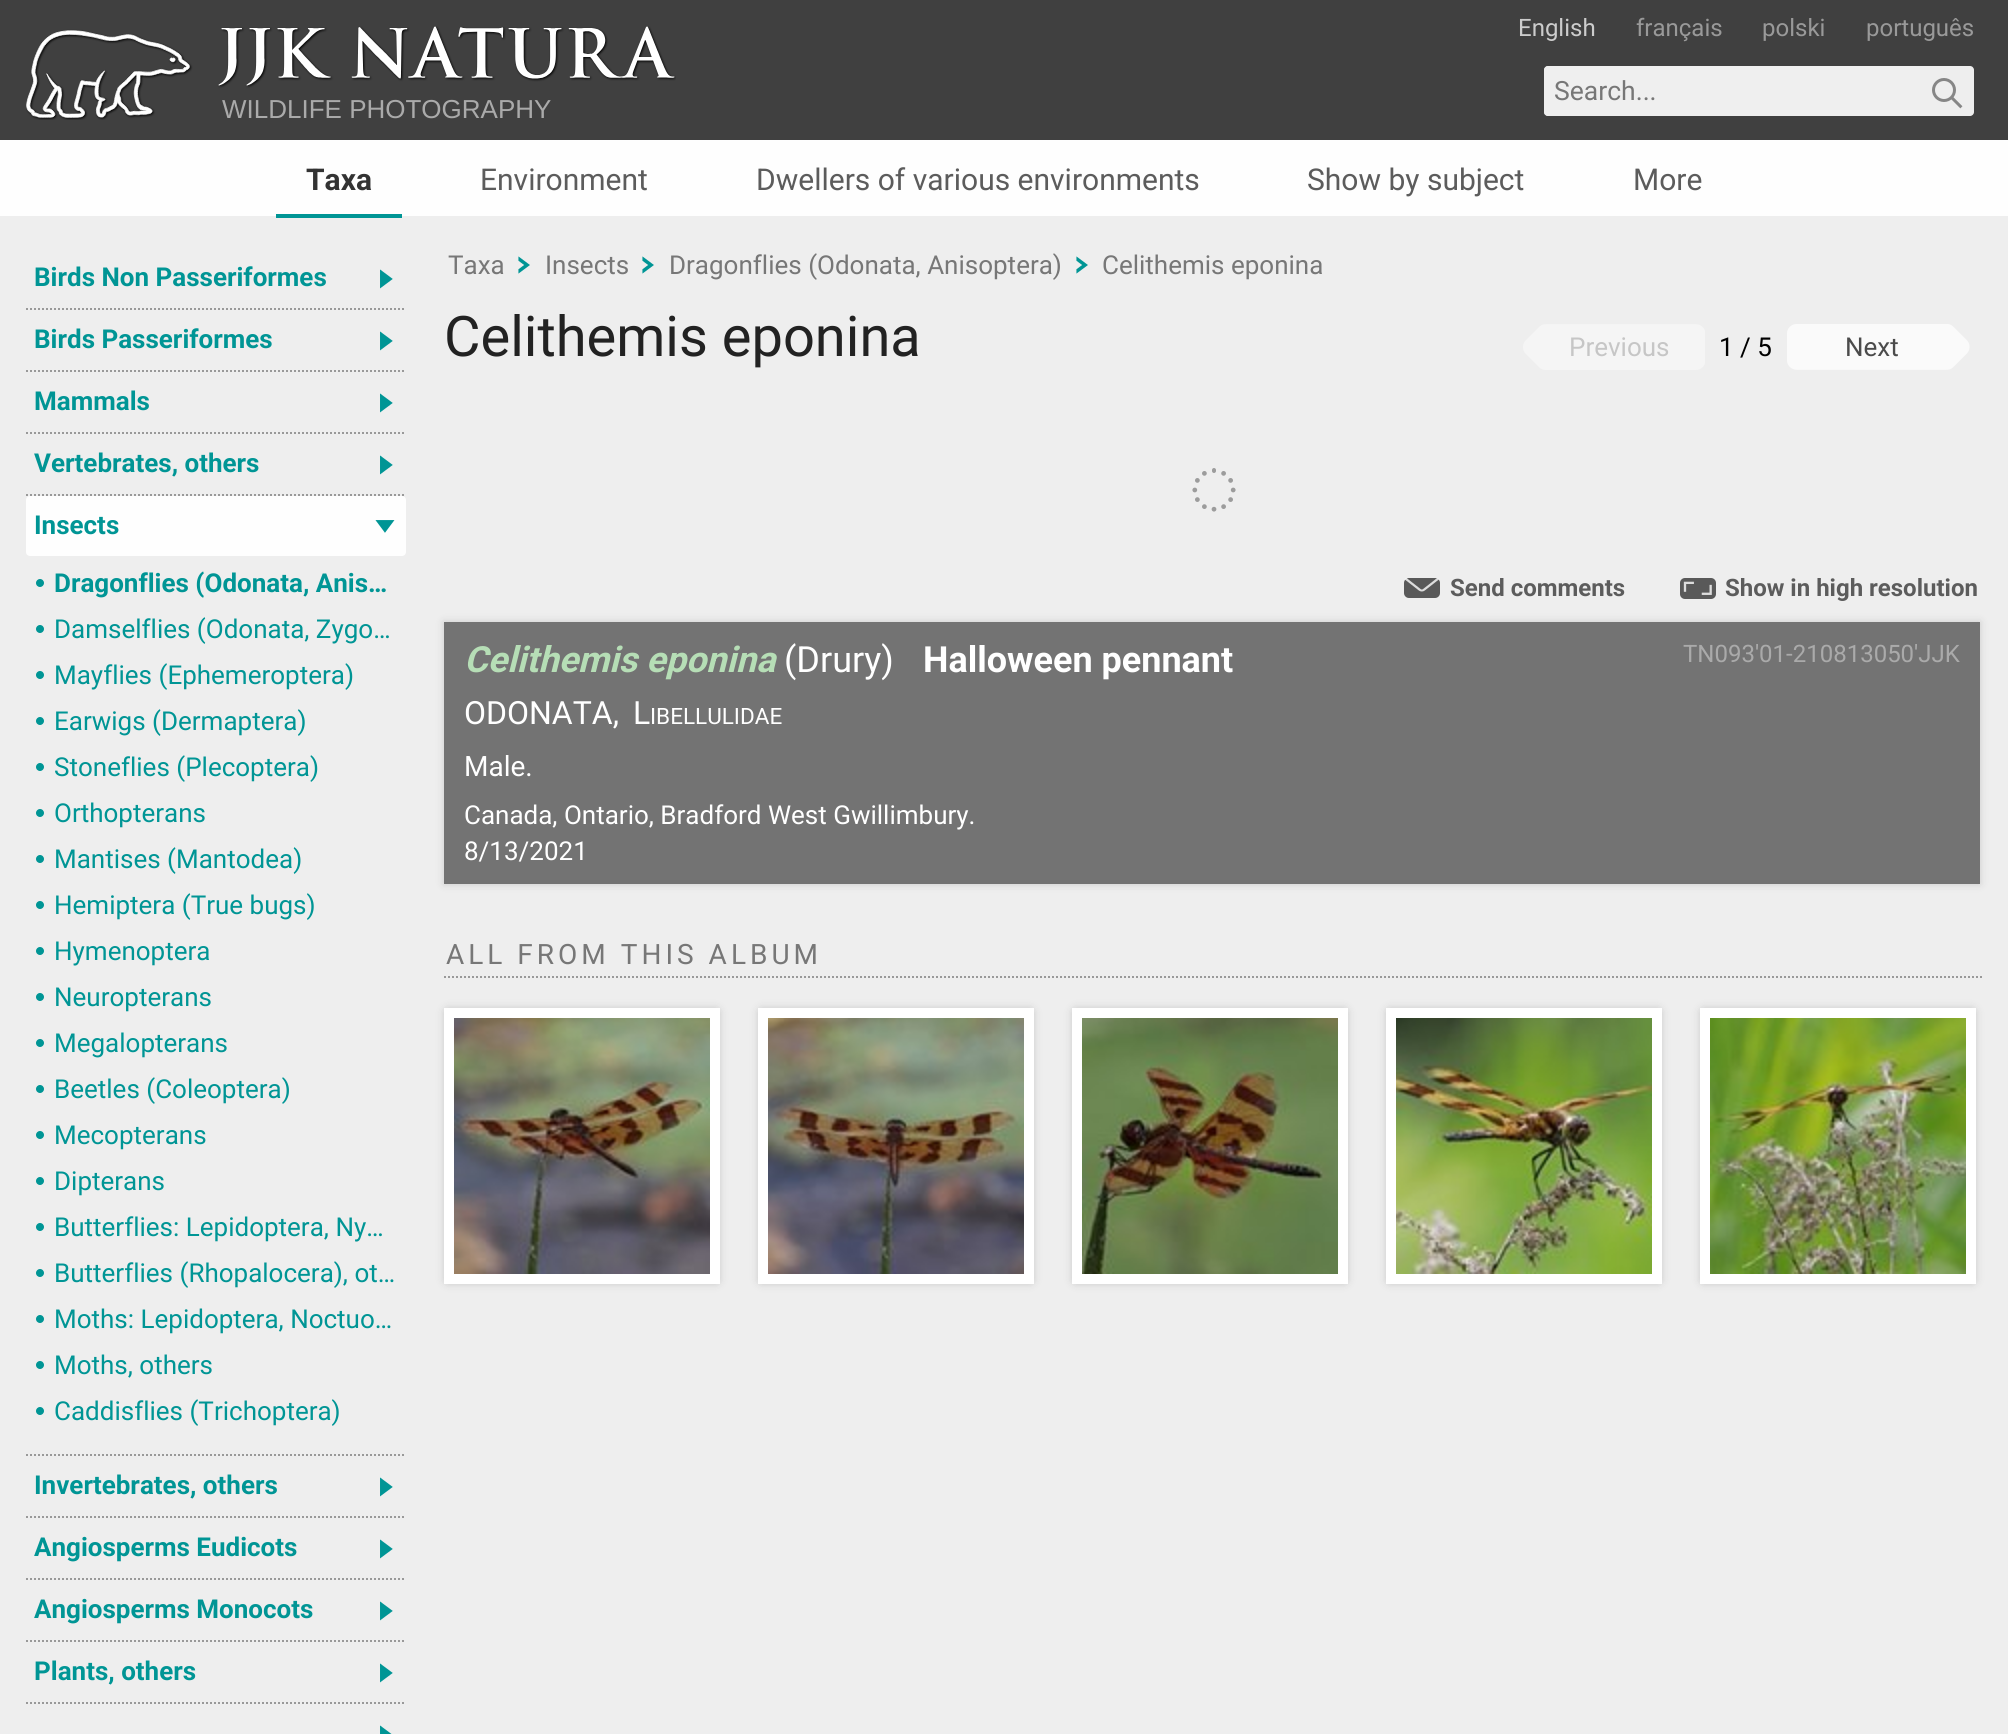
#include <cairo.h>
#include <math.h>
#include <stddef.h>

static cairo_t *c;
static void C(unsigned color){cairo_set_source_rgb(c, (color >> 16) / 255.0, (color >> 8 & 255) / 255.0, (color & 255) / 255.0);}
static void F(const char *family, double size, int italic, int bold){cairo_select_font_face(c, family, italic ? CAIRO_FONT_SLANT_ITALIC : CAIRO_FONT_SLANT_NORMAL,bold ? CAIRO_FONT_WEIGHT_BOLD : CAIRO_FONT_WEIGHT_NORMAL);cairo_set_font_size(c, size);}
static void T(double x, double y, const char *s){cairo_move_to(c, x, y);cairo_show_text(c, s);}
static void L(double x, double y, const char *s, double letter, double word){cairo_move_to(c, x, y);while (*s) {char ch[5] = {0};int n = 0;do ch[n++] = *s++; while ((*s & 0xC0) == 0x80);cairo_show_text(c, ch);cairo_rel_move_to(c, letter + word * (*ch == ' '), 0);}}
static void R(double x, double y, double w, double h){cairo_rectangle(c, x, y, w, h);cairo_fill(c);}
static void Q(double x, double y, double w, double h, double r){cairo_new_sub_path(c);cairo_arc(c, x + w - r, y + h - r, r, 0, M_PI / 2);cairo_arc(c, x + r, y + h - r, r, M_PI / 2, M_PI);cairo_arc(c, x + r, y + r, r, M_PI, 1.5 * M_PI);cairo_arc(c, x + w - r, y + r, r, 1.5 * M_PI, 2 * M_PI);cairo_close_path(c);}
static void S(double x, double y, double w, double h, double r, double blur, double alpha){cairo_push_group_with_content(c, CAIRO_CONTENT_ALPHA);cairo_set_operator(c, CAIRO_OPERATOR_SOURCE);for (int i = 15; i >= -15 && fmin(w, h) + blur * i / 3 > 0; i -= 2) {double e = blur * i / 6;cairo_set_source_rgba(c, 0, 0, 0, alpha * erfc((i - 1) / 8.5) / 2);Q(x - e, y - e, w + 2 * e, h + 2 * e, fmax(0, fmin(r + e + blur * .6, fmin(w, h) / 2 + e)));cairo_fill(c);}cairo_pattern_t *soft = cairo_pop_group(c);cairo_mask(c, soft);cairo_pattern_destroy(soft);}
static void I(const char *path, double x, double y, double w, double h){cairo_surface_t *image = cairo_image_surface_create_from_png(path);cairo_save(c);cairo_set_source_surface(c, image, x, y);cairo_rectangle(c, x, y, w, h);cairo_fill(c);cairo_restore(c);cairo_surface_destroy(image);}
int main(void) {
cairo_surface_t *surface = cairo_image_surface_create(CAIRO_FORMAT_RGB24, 2008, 1734);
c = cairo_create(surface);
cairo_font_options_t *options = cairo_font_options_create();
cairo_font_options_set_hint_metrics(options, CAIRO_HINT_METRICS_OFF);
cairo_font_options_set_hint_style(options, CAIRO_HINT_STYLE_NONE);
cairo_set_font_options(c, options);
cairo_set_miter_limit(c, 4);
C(0xeeeeee);
cairo_paint(c);
C(0x404040);
R(0,0,2008,140);
F("Roboto",24,0,0);
C(0xcccccc);
T(1518,36,"English");
C(0x999999);
T(1636,36,"français");
T(1762,36,"polski");
T(1866,36,"português");
C(0xeeeeee);
Q(1544,66,430,50,4);
cairo_fill(c);
cairo_set_source_rgba(c,0.933,0.933,0.933,0.8);
Q(1544,66,376,50,4);
cairo_fill(c);
F("Roboto",26.5,0,0);
C(0x777777);
T(1554,100,"Search...");
I("1.png",1932,78,31,31);
I("2.png",26,26,650,94);
F("Liberation Sans",26,0,0);
C(0xaaaaaa);
T(222,118,"WILDLIFE PHOTOGRAPHY");
C(0xfefefe);
R(0,140,2008,76);
C(0x009595);
R(276,214,126,4);
F("Roboto",30,0,1);
C(0x333333);
T(306,190,"Taxa");
F("Roboto",30,0,0);
C(0x5c5c5c);
T(480,190,"Environment");
T(756,190,"Dwellers of various environments");
T(1307,190,"Show by subject");
T(1633,190,"More");
cairo_new_path(c);
cairo_move_to(c,26,309);
cairo_line_to(c,406,309);
C(0x999999);
cairo_set_dash(c,(double[]){2,2},2,0);
cairo_stroke(c);
F("Roboto",26,0,1);
C(0x009595);
T(34,286,"Birds Non Passeriformes");
I("3.png",380,269,13,20);
cairo_new_path(c);
cairo_move_to(c,26,371);
cairo_line_to(c,406,371);
C(0x999999);
cairo_stroke(c);
C(0x009595);
T(34,348,"Birds Passeriformes");
I("3.png",380,331,13,20);
cairo_new_path(c);
cairo_move_to(c,26,433);
cairo_line_to(c,406,433);
C(0x999999);
cairo_stroke(c);
C(0x009595);
T(34,410,"Mammals");
I("3.png",380,393,13,20);
cairo_new_path(c);
cairo_move_to(c,26,495);
cairo_line_to(c,406,495);
C(0x999999);
cairo_stroke(c);
C(0x009595);
T(34,472,"Vertebrates, others");
I("3.png",380,455,13,20);
cairo_new_path(c);
cairo_move_to(c,26,1455);
cairo_line_to(c,406,1455);
C(0x999999);
cairo_stroke(c);
C(0xfefefe);
Q(26,496,380,60,4);
cairo_fill(c);
C(0x009595);
T(34,534,"Insects");
I("4.png",375,520,20,13);
I("5.png",36,579,8,8);
T(54,592,"Dragonflies (Odonata, Anis…");
I("5.png",36,625,8,8);
F("Roboto",26,0,0);
T(54,638,"Damselflies (Odonata, Zygo…");
I("5.png",36,671,8,8);
T(54,684,"Mayflies (Ephemeroptera)");
I("5.png",36,717,8,8);
T(54,730,"Earwigs (Dermaptera)");
I("5.png",36,763,8,8);
T(54,776,"Stoneflies (Plecoptera)");
I("5.png",36,809,8,8);
T(54,822,"Orthopterans");
I("5.png",36,855,8,8);
T(54,868,"Mantises (Mantodea)");
I("5.png",36,901,8,8);
T(54,914,"Hemiptera (True bugs)");
I("5.png",36,947,8,8);
T(54,960,"Hymenoptera");
I("5.png",36,993,8,8);
T(54,1006,"Neuropterans");
I("5.png",36,1039,8,8);
T(54,1052,"Megalopterans");
I("5.png",36,1085,8,8);
T(54,1098,"Beetles (Coleoptera)");
I("5.png",36,1131,8,8);
T(54,1144,"Mecopterans");
I("5.png",36,1177,8,8);
T(54,1190,"Dipterans");
I("5.png",36,1223,8,8);
T(54,1236,"Butterflies: Lepidoptera, Ny…");
I("5.png",36,1269,8,8);
T(54,1282,"Butterflies (Rhopalocera), ot…");
I("5.png",36,1315,8,8);
T(54,1328,"Moths: Lepidoptera, Noctuo…");
I("5.png",36,1361,8,8);
T(54,1374,"Moths, others");
I("5.png",36,1407,8,8);
T(54,1420,"Caddisflies (Trichoptera)");
cairo_new_path(c);
cairo_move_to(c,26,1517);
cairo_line_to(c,406,1517);
C(0x999999);
cairo_stroke(c);
F("Roboto",26,0,1);
C(0x009595);
T(34,1494,"Invertebrates, others");
I("3.png",380,1477,13,20);
cairo_new_path(c);
cairo_move_to(c,26,1579);
cairo_line_to(c,406,1579);
C(0x999999);
cairo_stroke(c);
C(0x009595);
T(34,1556,"Angiosperms Eudicots");
I("3.png",380,1539,13,20);
cairo_new_path(c);
cairo_move_to(c,26,1641);
cairo_line_to(c,406,1641);
C(0x999999);
cairo_stroke(c);
C(0x009595);
T(34,1618,"Angiosperms Monocots");
I("3.png",380,1601,13,20);
cairo_new_path(c);
cairo_move_to(c,26,1703);
cairo_line_to(c,406,1703);
C(0x999999);
cairo_stroke(c);
C(0x009595);
T(34,1680,"Plants, others");
I("3.png",380,1663,13,20);
I("6.png",380,1725,12,9);
F("Roboto",26,0,0);
C(0x777777);
T(448,274,"Taxa");
I("7.png",518,256,12,18);
T(545,274,"Insects");
I("7.png",642,256,12,18);
T(669,274,"Dragonflies (Odonata, Anisoptera)");
I("7.png",1076,256,12,18);
T(1102,274,"Celithemis eponina");
F("Roboto",56,0,0);
C(0x222222);
T(444,356,"Celithemis eponina");
I("8.png",1523,324,182,46);
F("Roboto",26,0,0);
C(0xc6c6c6);
T(1569,356,"Previous");
C(0x000000);
T(1719,356,"1 / 5");
I("9.png",1787,324,183,46);
C(0x4b4b4b);
T(1845,356,"Next");
I("10.png",1192,468,44,44);
I("11.png",1404,578,36,20);
F("Roboto",24,0,1);
C(0x5c5c5c);
T(1450,596,"Send comments");
I("12.png",1680,578,36,21);
T(1725,596,"Show in high resolution");
C(0x777777);
S(444,622,1536,262,0,4,.3);
C(0x737373);
R(444,622,1536,262);
F("Roboto",36,1,1);
C(0xb6deb6);
T(464,672,"Celithemis eponina");
F("Roboto",36,0,0);
C(0xffffff);
T(784,672,"(Drury)");
F("Roboto",36,0,1);
T(923,672,"Halloween pennant");
F("Roboto",24,0,0);
C(0xaaaaaa);
T(1683,662,"TN093'01-210813050'JJK");
F("Roboto",32,0,0);
C(0xffffff);
T(464,724,"ODONATA,");
T(633,724,"L");
F("Roboto",22.5,0,0);
T(650,724,"IBELLULIDAE");
F("Roboto",28,0,0);
T(464,776,"Male.");
F("Roboto",26,0,0);
T(464,824,"Canada, Ontario, Bradford West Gwillimbury.");
T(464,860,"8/13/2021");
cairo_new_path(c);
cairo_move_to(c,444,977);
cairo_line_to(c,1984,977);
C(0x999999);
cairo_stroke(c);
F("Roboto",28,0,0);
C(0x777777);
L(446,964,"ALL FROM THIS ALBUM",4,0);
C(0x777777);
S(444,1008,276,276,4,4,.3);
cairo_new_path(c);
cairo_move_to(c,449,1013);
cairo_line_to(c,715,1013);
cairo_line_to(c,715,1279);
cairo_line_to(c,449,1279);
cairo_close_path(c);
C(0xffffff);
cairo_set_line_width(c,10);
cairo_set_dash(c,NULL,0,0);
cairo_stroke(c);
I("13.png",454,1018,256,256);
C(0x777777);
S(758,1008,276,276,4,4,.3);
cairo_new_path(c);
cairo_move_to(c,763,1013);
cairo_line_to(c,1029,1013);
cairo_line_to(c,1029,1279);
cairo_line_to(c,763,1279);
cairo_close_path(c);
C(0xffffff);
cairo_stroke(c);
I("14.png",768,1018,256,256);
C(0x777777);
S(1072,1008,276,276,4,4,.3);
cairo_new_path(c);
cairo_move_to(c,1077,1013);
cairo_line_to(c,1343,1013);
cairo_line_to(c,1343,1279);
cairo_line_to(c,1077,1279);
cairo_close_path(c);
C(0xffffff);
cairo_stroke(c);
I("15.png",1082,1018,256,256);
C(0x777777);
S(1386,1008,276,276,4,4,.3);
cairo_new_path(c);
cairo_move_to(c,1391,1013);
cairo_line_to(c,1657,1013);
cairo_line_to(c,1657,1279);
cairo_line_to(c,1391,1279);
cairo_close_path(c);
C(0xffffff);
cairo_stroke(c);
I("16.png",1396,1018,256,256);
C(0x777777);
S(1700,1008,276,276,4,4,.3);
cairo_new_path(c);
cairo_move_to(c,1705,1013);
cairo_line_to(c,1971,1013);
cairo_line_to(c,1971,1279);
cairo_line_to(c,1705,1279);
cairo_close_path(c);
C(0xffffff);
cairo_stroke(c);
I("17.png",1710,1018,256,256);
cairo_surface_write_to_png(surface, "o.png");
cairo_font_options_destroy(options);
cairo_destroy(c);
cairo_surface_destroy(surface);
return 0;
}
